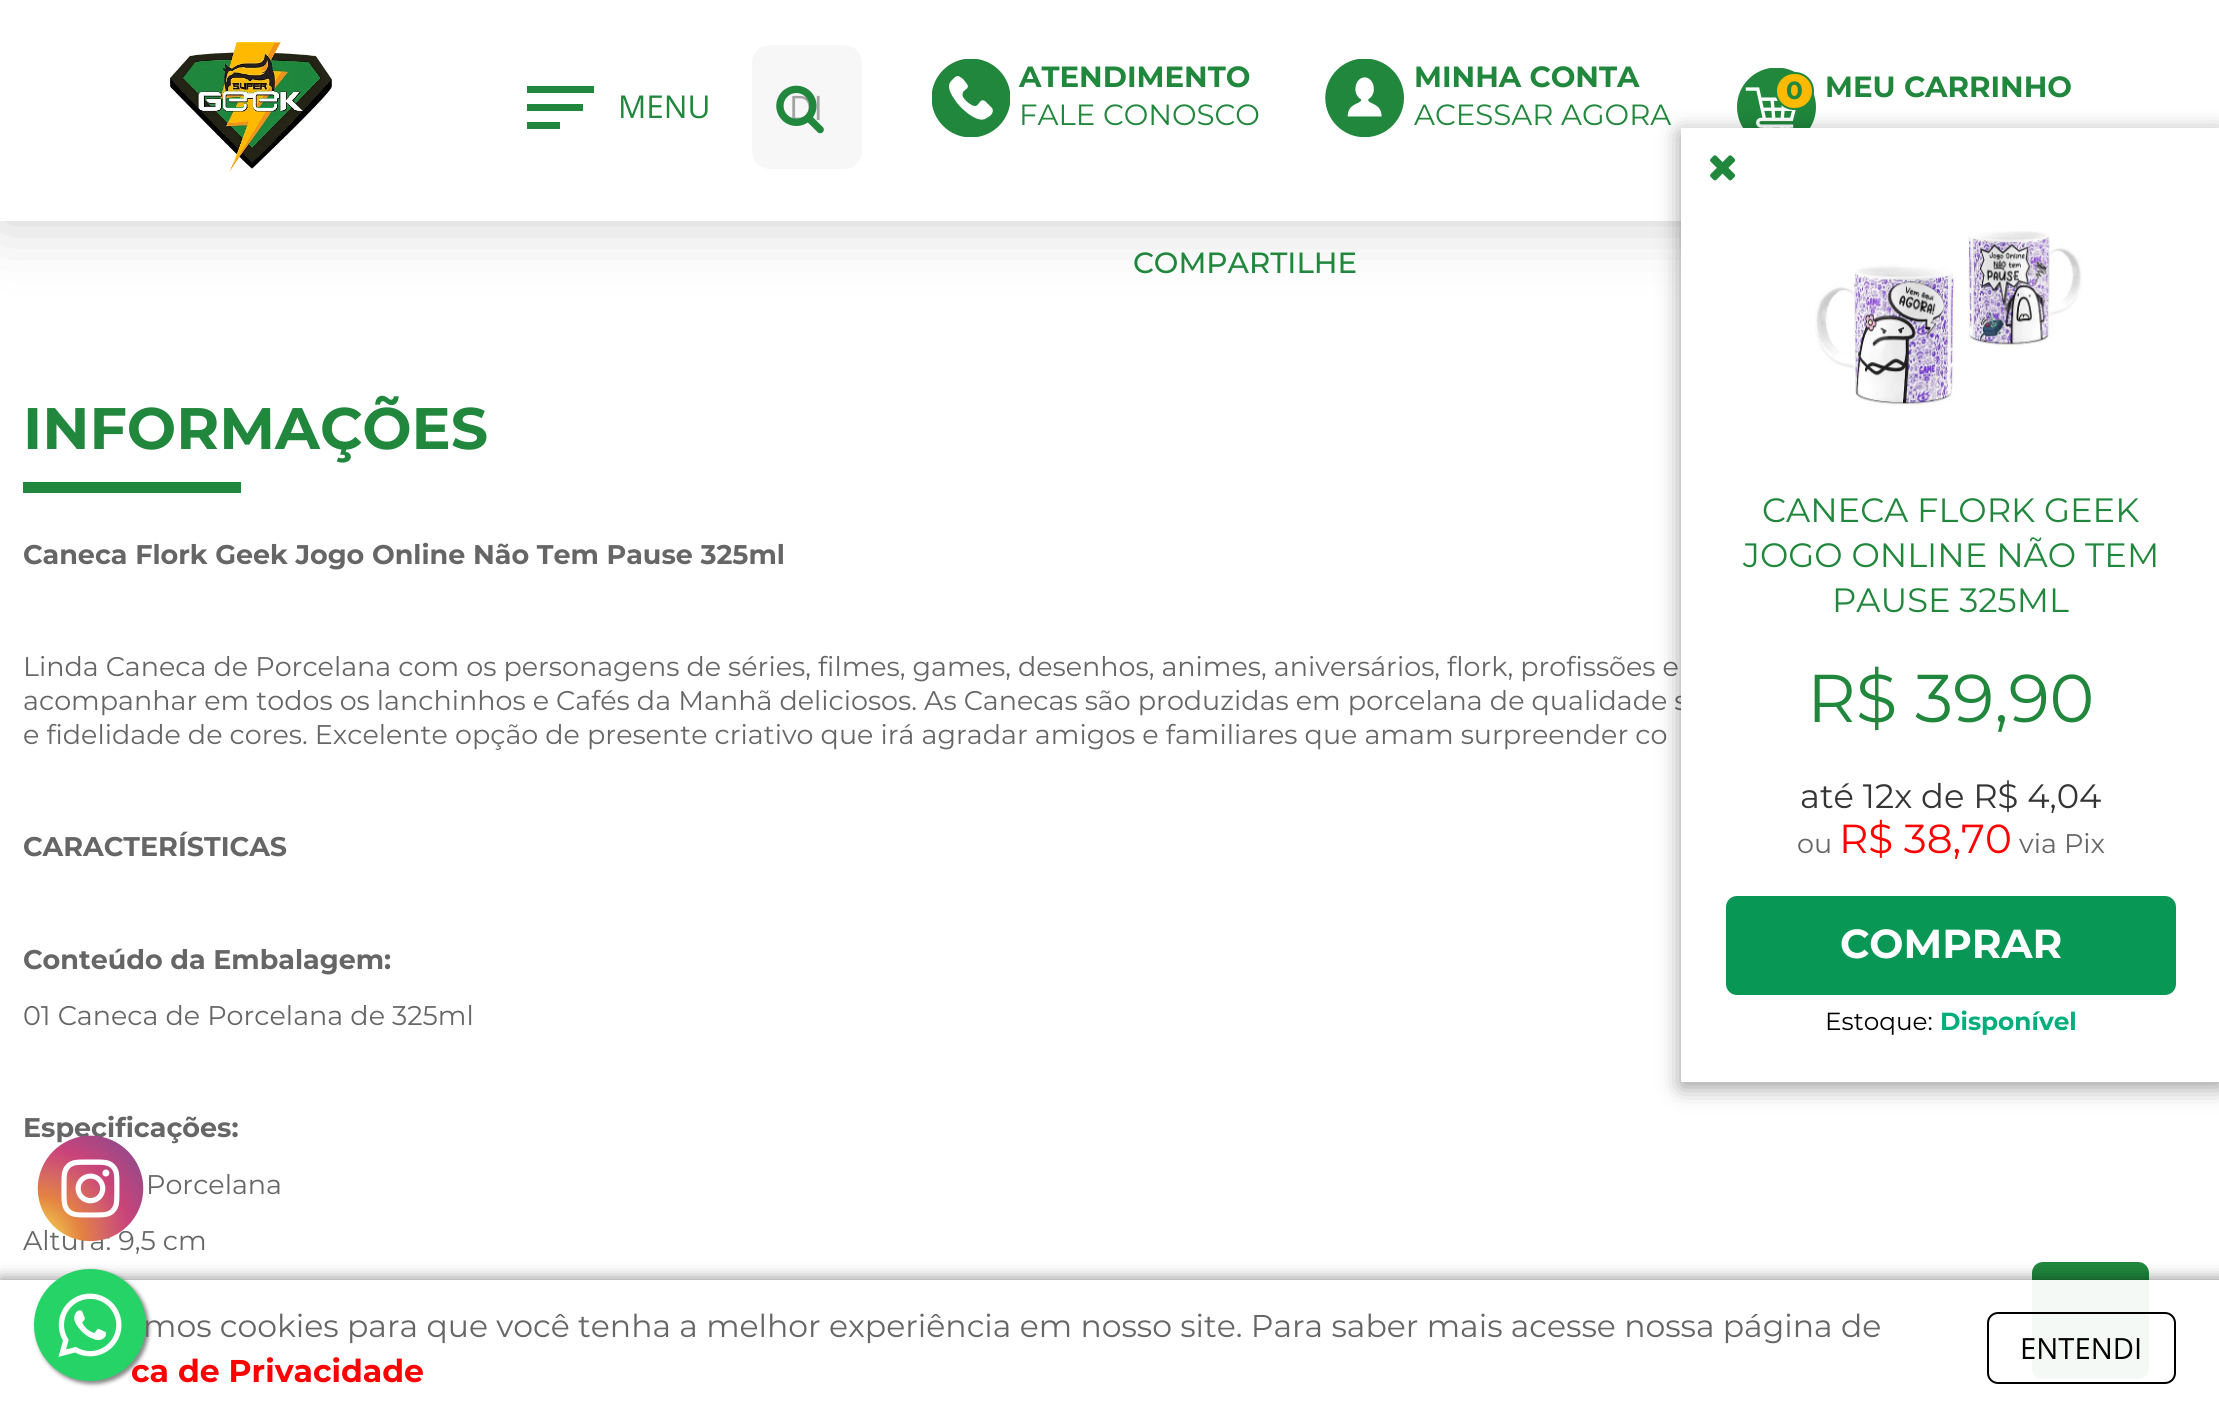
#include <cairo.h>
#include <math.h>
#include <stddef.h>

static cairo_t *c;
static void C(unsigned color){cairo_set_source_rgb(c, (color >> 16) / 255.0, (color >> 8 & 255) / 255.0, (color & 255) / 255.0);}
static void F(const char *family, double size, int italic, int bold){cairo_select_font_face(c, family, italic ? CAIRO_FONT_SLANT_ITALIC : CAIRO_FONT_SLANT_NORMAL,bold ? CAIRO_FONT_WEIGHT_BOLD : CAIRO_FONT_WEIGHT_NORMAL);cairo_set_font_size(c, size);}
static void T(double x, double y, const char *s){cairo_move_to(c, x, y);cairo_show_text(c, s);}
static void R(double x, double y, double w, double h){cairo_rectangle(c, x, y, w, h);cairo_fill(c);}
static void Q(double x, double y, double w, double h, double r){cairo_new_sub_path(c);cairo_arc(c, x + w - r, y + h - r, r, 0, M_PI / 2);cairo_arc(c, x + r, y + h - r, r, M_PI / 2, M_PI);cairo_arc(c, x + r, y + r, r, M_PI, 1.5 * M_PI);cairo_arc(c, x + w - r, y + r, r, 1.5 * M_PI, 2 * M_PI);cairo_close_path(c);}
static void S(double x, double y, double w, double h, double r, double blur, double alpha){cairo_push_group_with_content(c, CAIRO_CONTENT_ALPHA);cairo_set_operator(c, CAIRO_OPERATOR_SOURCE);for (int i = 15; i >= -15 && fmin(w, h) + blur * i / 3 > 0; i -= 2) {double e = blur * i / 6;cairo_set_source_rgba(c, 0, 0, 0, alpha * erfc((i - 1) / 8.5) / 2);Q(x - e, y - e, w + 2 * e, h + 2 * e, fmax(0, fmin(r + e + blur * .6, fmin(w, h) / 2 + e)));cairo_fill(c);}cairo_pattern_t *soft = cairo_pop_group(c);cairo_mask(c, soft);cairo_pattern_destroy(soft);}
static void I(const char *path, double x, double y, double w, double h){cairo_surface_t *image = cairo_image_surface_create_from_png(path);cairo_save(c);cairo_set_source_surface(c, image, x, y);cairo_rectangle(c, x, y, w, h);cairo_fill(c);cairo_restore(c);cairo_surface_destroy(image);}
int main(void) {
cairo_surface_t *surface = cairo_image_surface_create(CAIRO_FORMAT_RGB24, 2219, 1415);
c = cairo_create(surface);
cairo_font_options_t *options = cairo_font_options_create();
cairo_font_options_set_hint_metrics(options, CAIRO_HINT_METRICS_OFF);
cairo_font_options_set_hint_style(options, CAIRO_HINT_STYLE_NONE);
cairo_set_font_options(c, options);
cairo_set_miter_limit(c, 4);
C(0xffffff);
cairo_paint(c);
C(0x000000);
S(0,0,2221,221,0,34,.2);
C(0xffffff);
R(0,0,2219,221);
I("1.png",170,42,162,130);
C(0x20873c);
R(527,86,67,7);
R(527,104,56,7);
R(527,122,33,7);
F("Open Sans",31.5,0,0);
T(618,118,"MENU");
C(0xf7f7f7);
Q(752,45,110,124,18);
cairo_fill(c);
F("Open Sans",33.75,0,0);
C(0xa3a3a3);
T(789,120,"DI");
I("2.png",776,85,48,49);
cairo_save(c);
cairo_rectangle(c,932,59,78,78);
cairo_clip(c);
C(0x20873c);
cairo_arc(c,971,98,39.5,0,2 * M_PI);
cairo_fill(c);
cairo_restore(c);
C(0xffffff);
cairo_new_path(c);
cairo_move_to(c,992,108);
cairo_line_to(c,985,101);
cairo_curve_to(c,978,97,980,111,970,104);
cairo_curve_to(c,967,102,965,100,963,97);
cairo_curve_to(c,960,89,971,90,967,84);
cairo_line_to(c,963,79);
cairo_curve_to(c,958,75,957,75,953,79);
cairo_curve_to(c,951,81,949,83,949,86);
cairo_curve_to(c,949,91,952,96,955,100);
cairo_curve_to(c,959,107,976,123,985,119);
cairo_line_to(c,990,116);
cairo_curve_to(c,992,114,994,111,992,108);
cairo_close_path(c);
cairo_fill(c);
F("Montserrat",29.25,0,1);
C(0x20873c);
T(1019,87,"ATENDIMENTO");
F("Montserrat",29.25,0,0);
T(1019,125,"FALE CONOSCO");
I("3.png",1325,59,79,78);
F("Montserrat",29.25,0,1);
T(1414,87,"MINHA CONTA");
F("Montserrat",29.25,0,0);
T(1414,125,"ACESSAR AGORA");
I("4.png",1737,68,79,60);
F("Montserrat",29.25,0,1);
T(1825,97,"MEU CARRINHO");
C(0xffba00);
Q(1776,73,37,36,18);
cairo_fill_preserve(c);
C(0x20873c);
cairo_stroke(c);
F("Montserrat",24.75,0,1);
T(1786,99,"0");
F("Montserrat Medium",29.25,0,0);
T(1133,273,"COMPARTILHE");
R(23,482,218,11);
F("Montserrat",58.5,0,1);
T(23,449,"INFORMAÇÕES");
F("Montserrat",27,0,1);
C(0x666666);
T(23,564,"Caneca Flork Geek Jogo Online Não Tem Pause 325ml");
F("Montserrat",27,0,0);
T(23,676,"Linda Caneca de Porcelana com os personagens de séries, filmes, games, desenhos, animes, aniversários, flork, profissões e");
T(23,710,"acompanhar em todos os lanchinhos e Cafés da Manhã deliciosos. As Canecas são produzidas em porcelana de qualidade s");
T(23,744,"e fidelidade de cores. Excelente opção de presente criativo que irá agradar amigos e familiares que amam surpreender co");
F("Montserrat",27,0,1);
T(23,856,"CARACTERÍSTICAS");
T(23,969,"Conteúdo da Embalagem:");
F("Montserrat",27,0,0);
T(23,1025,"01 Caneca de Porcelana de 325ml");
F("Montserrat",27,0,1);
T(23,1137,"Especificações:");
F("Montserrat",27,0,0);
T(146,1194,"Porcelana");
T(23,1250,"Altura: 9,5 cm");
C(0x000000);
S(1681,133,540,954,0,11,.4);
C(0xffffff);
R(1681,128,538,954);
I("5.png",1710,155,26,26);
I("6.png",1815,231,267,175);
F("Montserrat",33.75,0,0);
C(0x20873c);
T(1762,522,"CANECA FLORK GEEK");
T(1743,567,"JOGO ONLINE NÃO TEM");
T(1832,612,"PAUSE 325ML");
F("Montserrat",67.5,0,0);
T(1807,722,"R$ 39,90");
F("Montserrat",33.75,0,0);
C(0x353535);
T(1800,808,"até 12x de R$ 4,04");
F("Montserrat",27,0,0);
C(0x666666);
T(1797,853,"ou");
F("Montserrat",40.5,0,0);
C(0xff0000);
T(1839,853,"R$ 38,70");
F("Montserrat",27,0,0);
C(0x666666);
T(2019,853,"via Pix");
C(0x089755);
Q(1726,896,450,99,11);
cairo_fill(c);
F("Montserrat",40.5,0,1);
C(0xffffff);
T(1840,958,"COMPRAR");
F("Montserrat",24.75,0,0);
C(0x000000);
T(1825,1030,"Estoque:");
F("Montserrat",24.75,0,1);
C(0x00ae7c);
T(1940,1030,"Disponível");
I("7.png",37,1135,107,107);
C(0x20873c);
Q(2032,1262,117,117,11);
cairo_fill(c);
cairo_save(c);
cairo_set_fill_rule(c,CAIRO_FILL_RULE_EVEN_ODD);
cairo_new_path(c);
cairo_move_to(c,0,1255);
cairo_line_to(c,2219,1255);
cairo_line_to(c,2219,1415);
cairo_line_to(c,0,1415);
cairo_close_path(c);
cairo_move_to(c,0,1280);
cairo_line_to(c,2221,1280);
cairo_line_to(c,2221,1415);
cairo_line_to(c,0,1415);
cairo_close_path(c);
cairo_clip(c);
C(0x000000);
S(0,1280,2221,135,0,8,.5);
cairo_restore(c);
cairo_set_source_rgba(c,1,1,1,0.95);
R(0,1280,2219,99);
C(0x888888);
S(36,1271,113,113,56.5,2,1);
F("Montserrat",31.5,0,0);
C(0x666666);
T(143,1337,"mos cookies para que você tenha a melhor experiência em nosso site. Para saber mais acesse nossa página de");
F("Montserrat",31.5,0,1);
C(0xff0000);
T(131,1382,"ca de Privacidade");
I("8.png",34,1269,112,112);
Q(1988,1313,187,70,10);
C(0x000000);
cairo_stroke(c);
F("Open Sans",29.25,0,0);
T(2020,1359,"ENTENDI");
cairo_surface_write_to_png(surface, "o.png");
cairo_font_options_destroy(options);
cairo_destroy(c);
cairo_surface_destroy(surface);
return 0;
}
